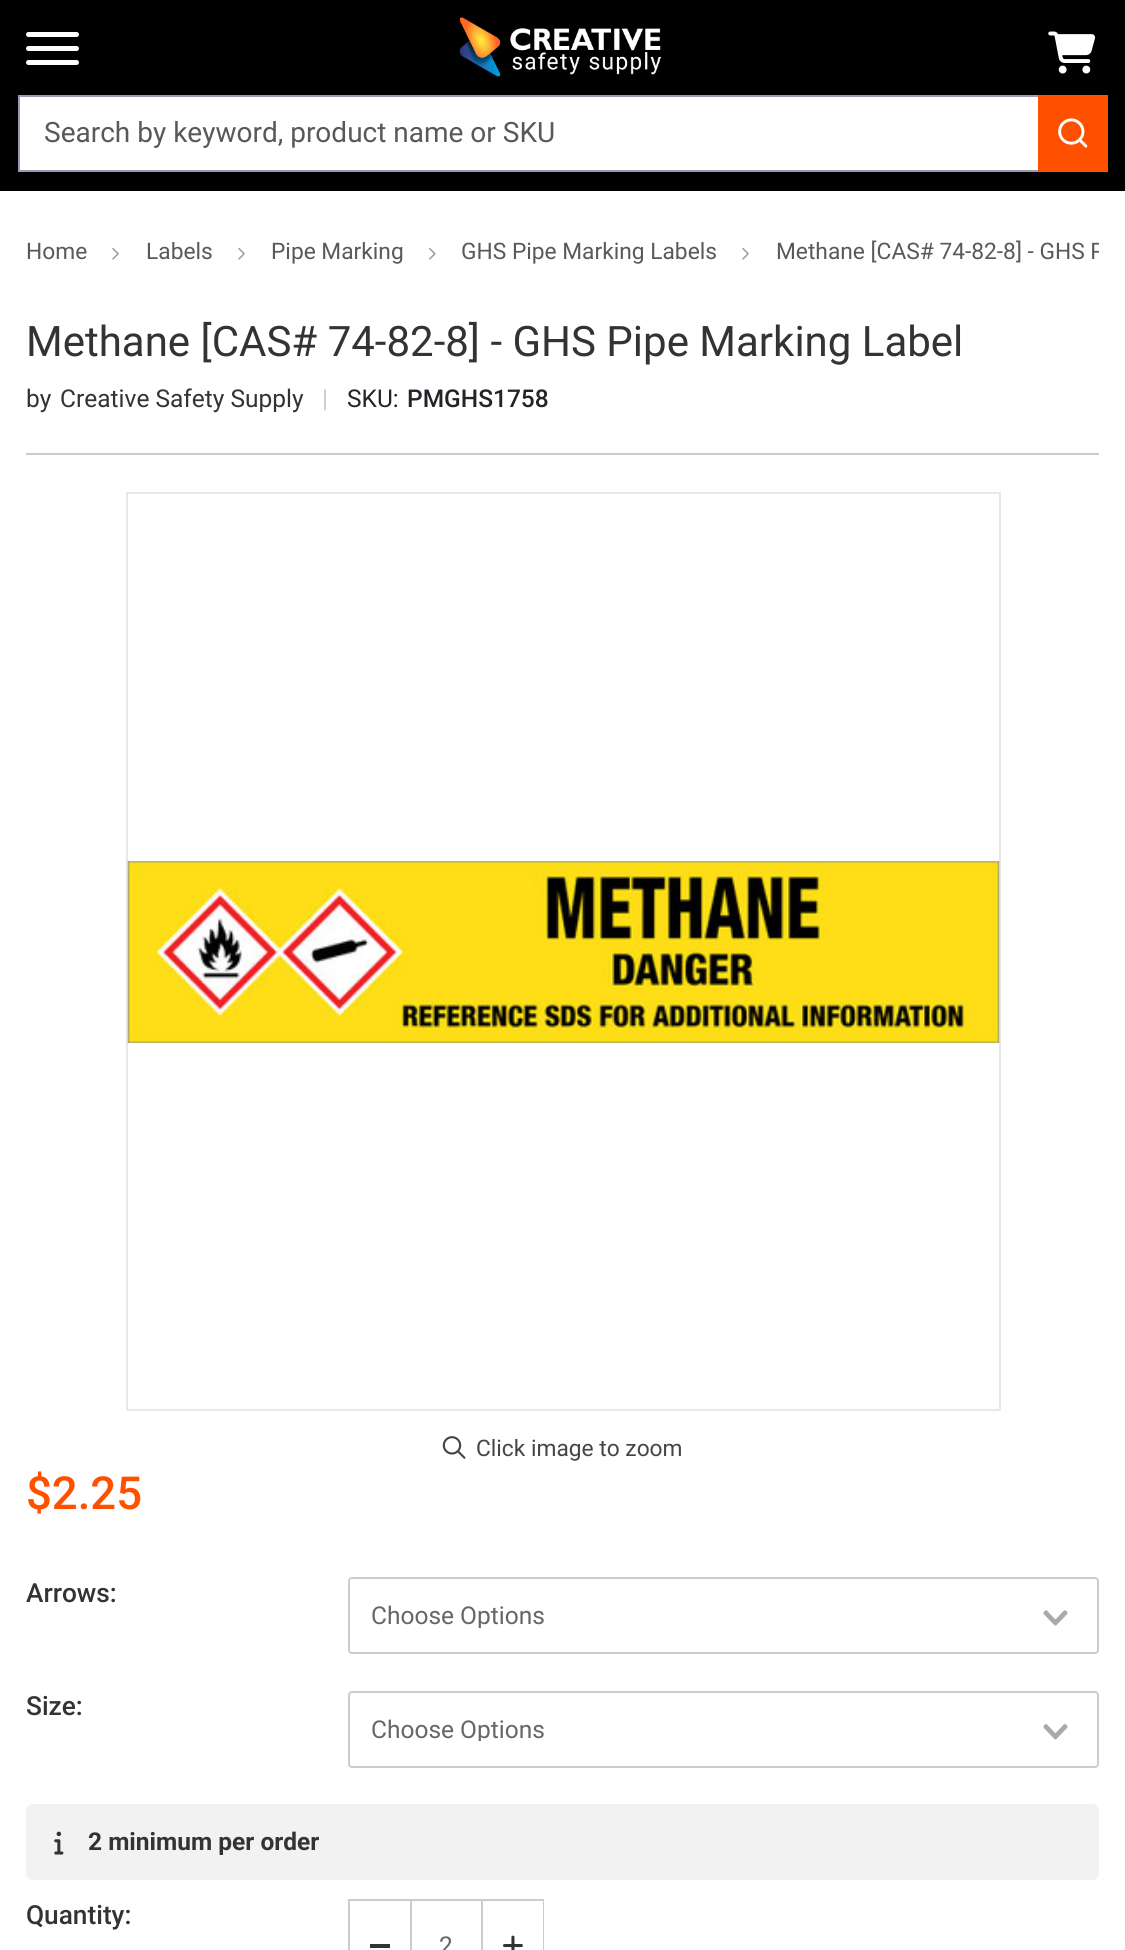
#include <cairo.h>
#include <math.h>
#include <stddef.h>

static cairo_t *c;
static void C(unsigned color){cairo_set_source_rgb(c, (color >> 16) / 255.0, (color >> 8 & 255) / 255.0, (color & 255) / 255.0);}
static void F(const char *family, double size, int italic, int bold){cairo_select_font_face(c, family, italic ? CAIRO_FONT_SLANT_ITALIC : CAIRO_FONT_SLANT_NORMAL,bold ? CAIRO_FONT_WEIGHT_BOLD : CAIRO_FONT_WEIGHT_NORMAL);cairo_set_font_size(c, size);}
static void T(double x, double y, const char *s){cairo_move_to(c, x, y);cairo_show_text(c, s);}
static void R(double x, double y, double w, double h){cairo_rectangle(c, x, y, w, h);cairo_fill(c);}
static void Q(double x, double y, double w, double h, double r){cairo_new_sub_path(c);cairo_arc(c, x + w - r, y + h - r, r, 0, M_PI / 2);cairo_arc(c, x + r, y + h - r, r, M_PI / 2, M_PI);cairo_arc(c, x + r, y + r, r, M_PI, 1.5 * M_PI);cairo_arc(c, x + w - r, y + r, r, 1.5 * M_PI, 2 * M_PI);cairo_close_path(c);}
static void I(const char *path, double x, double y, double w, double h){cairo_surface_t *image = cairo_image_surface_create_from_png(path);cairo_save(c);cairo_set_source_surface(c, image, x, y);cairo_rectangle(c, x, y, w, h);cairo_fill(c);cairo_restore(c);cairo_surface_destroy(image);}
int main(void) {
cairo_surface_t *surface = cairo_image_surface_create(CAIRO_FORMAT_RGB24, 1125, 1950);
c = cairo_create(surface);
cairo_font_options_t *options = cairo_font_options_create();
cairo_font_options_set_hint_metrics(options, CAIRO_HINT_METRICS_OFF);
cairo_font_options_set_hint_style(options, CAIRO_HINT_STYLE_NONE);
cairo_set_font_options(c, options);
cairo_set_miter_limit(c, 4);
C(0xffffff);
cairo_paint(c);
C(0x000000);
R(0,0,1125,191);
C(0xffffff);
Q(26,32,53,5,2.5);
cairo_fill(c);
Q(26,46,53,5,2.5);
cairo_fill(c);
Q(26,60,53,5,2.5);
cairo_fill(c);
I("1.png",1048,31,48,43);
I("2.png",459,17,202,60);
R(20,97,1018,73);
cairo_rectangle(c,19,96,1088,75);
C(0x9998b5);
cairo_stroke(c);
F("Roboto",28,0,0);
C(0x595959);
T(44,142,"Search by keyword, product name or SKU");
C(0xff5000);
R(1038,95,70,77);
I("3.png",1058,118,30,30);
F("Roboto",22.75,0,0);
C(0x595959);
T(26,259,"Home");
I("4.png",112,247,7,13);
T(146,259,"Labels");
I("4.png",238,247,7,13);
T(271,259,"Pipe Marking");
I("5.png",429,247,7,13);
T(461,259,"GHS Pipe Marking Labels");
I("4.png",742,247,7,13);
cairo_save(c);
cairo_rectangle(c,26,191,1073,105);
cairo_clip(c);
T(776,259,"Methane [CAS# 74-82-8] - GHS P");
cairo_restore(c);
C(0xcccccc);
R(26,453,1073,2);
F("Roboto",42,0,0);
C(0x333333);
T(26,356,"Methane [CAS# 74-82-8] - GHS Pipe Marking Label");
F("Roboto",24.5,0,0);
T(26,407,"by");
T(60,407,"Creative Safety Supply");
F("Roboto Medium",24.5,0,0);
C(0xcccccc);
T(322,407,"|");
F("Roboto",24.5,0,0);
C(0x212529);
T(347,407,"SKU:");
F("Roboto Medium",24.5,0,0);
T(407,407,"PMGHS1758");
cairo_rectangle(c,127,493,873,917);
C(0xe8e8e8);
cairo_stroke(c);
I("6.png",127,861,873,182);
I("7.png",442,1436,24,23);
F("Roboto",22.75,0,0);
C(0x454545);
T(476,1456,"Click image to zoom");
F("Roboto Medium",45.5,0,0);
C(0xff5000);
T(26,1509,"$2.25");
F("Roboto Medium",26.25,0,0);
C(0x333333);
T(26,1602,"Arrows:");
I("8.png",1043,1610,25,16);
Q(349,1578,749,75,3);
C(0xcccccc);
cairo_stroke(c);
cairo_save(c);
cairo_rectangle(c,371,1603,705,25);
cairo_clip(c);
F("Roboto",24.5,0,0);
C(0x666666);
T(371,1624,"Choose Options");
cairo_restore(c);
C(0x333333);
T(26,1715,"Size:");
I("9.png",1043,1723,25,17);
Q(349,1692,749,75,3);
C(0xcccccc);
cairo_stroke(c);
cairo_save(c);
cairo_rectangle(c,371,1717,705,24);
cairo_clip(c);
F("Roboto",24.5,0,0);
C(0x666666);
T(371,1738,"Choose Options");
cairo_restore(c);
C(0xf2f2f2);
Q(26,1804,1073,76,7);
cairo_fill(c);
I("10.png",54,1831,10,24);
F("Roboto",24.5,0,1);
C(0x333333);
T(88,1850,"2 minimum per order");
F("Roboto Medium",26.25,0,0);
T(26,1924,"Quantity:");
cairo_rectangle(c,349,1900,194,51);
C(0xcccccc);
cairo_stroke(c);
R(410,1901,2,49);
C(0x333333);
R(370,1944,20,4);
F("Roboto",24.5,0,0);
C(0x666666);
T(439,1954,"2");
C(0xffffff);
R(542,1901,1,49);
C(0xcccccc);
R(481,1901,2,49);
I("11.png",503,1935,20,15);
cairo_surface_write_to_png(surface, "o.png");
cairo_font_options_destroy(options);
cairo_destroy(c);
cairo_surface_destroy(surface);
return 0;
}
